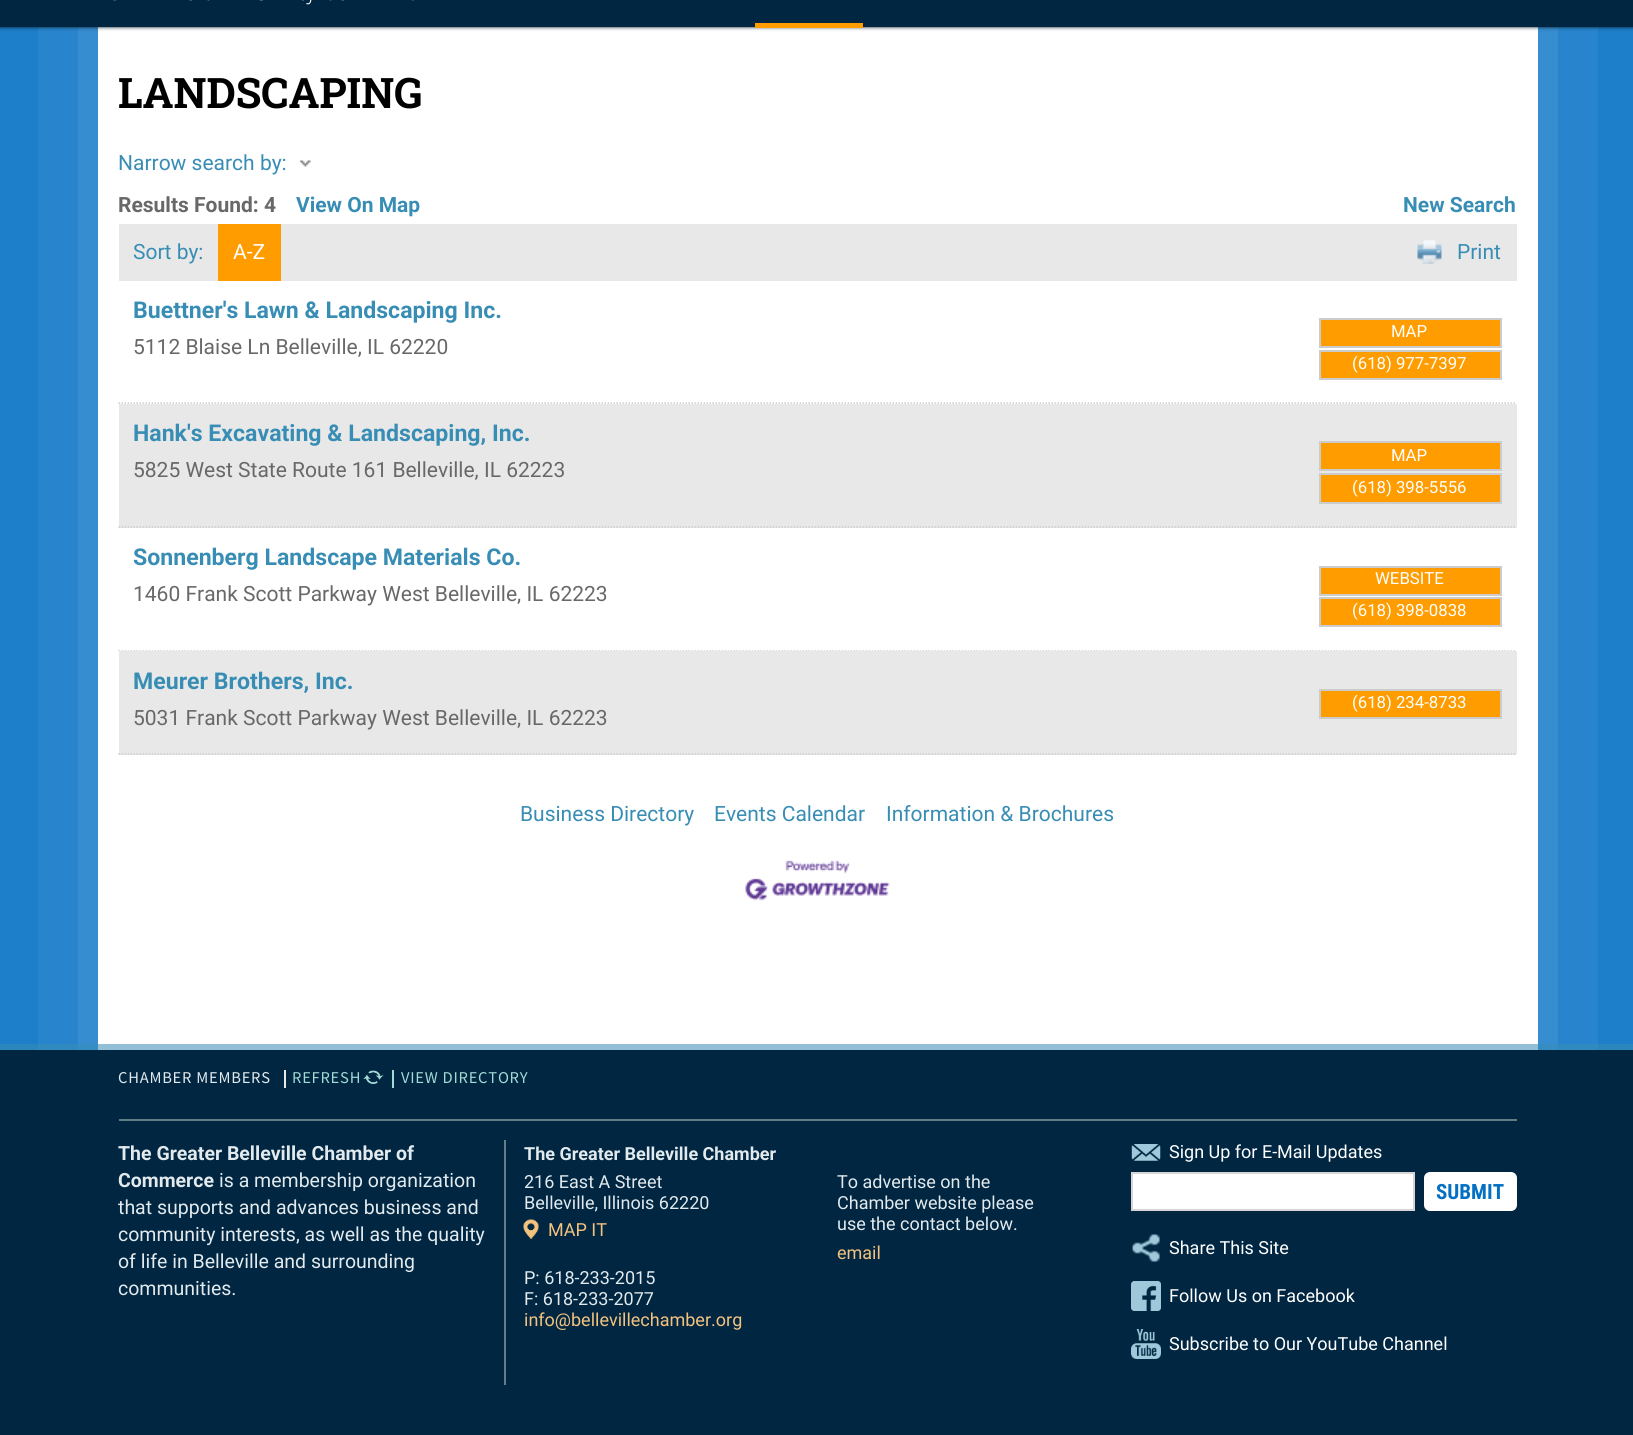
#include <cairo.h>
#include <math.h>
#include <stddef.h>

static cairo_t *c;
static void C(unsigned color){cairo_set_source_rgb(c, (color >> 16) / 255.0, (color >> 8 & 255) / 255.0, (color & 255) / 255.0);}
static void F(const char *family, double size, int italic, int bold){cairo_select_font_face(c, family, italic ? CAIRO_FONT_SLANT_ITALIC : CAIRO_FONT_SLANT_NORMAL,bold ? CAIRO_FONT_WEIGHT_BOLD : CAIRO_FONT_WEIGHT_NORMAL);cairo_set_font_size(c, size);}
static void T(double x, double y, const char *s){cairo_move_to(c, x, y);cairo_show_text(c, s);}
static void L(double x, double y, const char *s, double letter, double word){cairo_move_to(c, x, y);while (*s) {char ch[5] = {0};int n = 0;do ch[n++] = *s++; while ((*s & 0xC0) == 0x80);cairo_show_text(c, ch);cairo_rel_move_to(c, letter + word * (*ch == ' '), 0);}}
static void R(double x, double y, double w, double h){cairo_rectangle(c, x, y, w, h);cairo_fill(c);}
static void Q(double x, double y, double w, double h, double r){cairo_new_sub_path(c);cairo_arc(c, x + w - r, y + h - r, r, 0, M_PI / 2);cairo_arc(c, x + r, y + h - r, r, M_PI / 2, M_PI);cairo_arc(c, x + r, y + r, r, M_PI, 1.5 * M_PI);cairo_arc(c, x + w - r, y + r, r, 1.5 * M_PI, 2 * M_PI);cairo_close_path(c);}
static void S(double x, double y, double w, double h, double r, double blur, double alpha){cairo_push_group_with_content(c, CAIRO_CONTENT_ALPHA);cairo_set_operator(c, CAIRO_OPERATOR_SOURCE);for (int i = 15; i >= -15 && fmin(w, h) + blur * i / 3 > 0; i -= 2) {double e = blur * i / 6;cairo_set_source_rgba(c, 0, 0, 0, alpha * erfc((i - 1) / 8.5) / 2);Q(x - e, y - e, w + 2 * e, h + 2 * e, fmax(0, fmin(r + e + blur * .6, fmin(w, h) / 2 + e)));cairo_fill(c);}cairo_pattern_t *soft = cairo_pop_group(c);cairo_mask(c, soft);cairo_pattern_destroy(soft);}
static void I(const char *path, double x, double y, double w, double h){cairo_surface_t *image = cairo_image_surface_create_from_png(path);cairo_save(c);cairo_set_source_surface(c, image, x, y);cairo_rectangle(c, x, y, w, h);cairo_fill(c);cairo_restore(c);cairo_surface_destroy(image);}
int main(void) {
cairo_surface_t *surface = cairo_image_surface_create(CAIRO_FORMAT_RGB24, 1633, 1435);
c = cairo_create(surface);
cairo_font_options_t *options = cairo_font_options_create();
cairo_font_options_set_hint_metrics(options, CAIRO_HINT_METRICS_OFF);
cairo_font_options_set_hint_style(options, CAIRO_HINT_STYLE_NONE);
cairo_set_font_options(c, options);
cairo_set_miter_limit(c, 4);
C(0x0470c4);
cairo_paint(c);
C(0xffffff);
S(98,-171,1440,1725,0,120,.4);
C(0xffffff);
R(98,27,1440,1023);
C(0x031822);
S(0,-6,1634,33,0,2,1);
C(0x002641);
R(0,0,1633,27);
I("1.png",113,0,301,5);
C(0xff9c00);
R(755,23,108,5);
F("Roboto Slab",42,0,1);
C(0x000000);
T(118,108,"LANDSCAPING");
F("Roboto",21,0,0);
C(0x388db4);
T(118,170,"Narrow search by:");
I("2.png",299,160,12,7);
F("Roboto",21,0,1);
C(0x686868);
T(118,212,"Results Found: 4");
C(0x388db4);
T(296,212,"View On Map");
T(1403,212,"New Search");
C(0xe8e8e8);
R(119,224,1398,57);
F("Roboto",21,0,0);
C(0x388db4);
T(133,259,"Sort by:");
C(0xff9c00);
R(218,224,63,57);
C(0xffffff);
T(233,259,"A-Z");
I("3.png",1417,240,25,24);
C(0x388db4);
T(1457,259,"Print");
cairo_new_path(c);
cairo_move_to(c,118.5,403);
cairo_line_to(c,1516.5,403);
C(0xcccccc);
cairo_set_line_width(c,1.5);
cairo_set_dash(c,(double[]){1.5,1.5},2,0);
cairo_stroke(c);
F("Roboto",23.1,0,1);
C(0x388db4);
T(133,318,"Buettner's Lawn & Landscaping Inc.");
F("Roboto",21,0,0);
C(0x686868);
T(133,354,"5112 Blaise Ln Belleville, IL 62220");
C(0xff9c00);
cairo_rectangle(c,1320,319,181,28);
cairo_fill_preserve(c);
C(0xcccccc);
cairo_set_line_width(c,2);
cairo_set_dash(c,NULL,0,0);
cairo_stroke(c);
F("Roboto",16.75,0,0);
C(0xffffff);
T(1391,337,"MAP");
C(0xff9c00);
cairo_rectangle(c,1320,351,181,28);
cairo_fill_preserve(c);
C(0xcccccc);
cairo_stroke(c);
C(0xffffff);
T(1352,369,"(618) 977-7397");
C(0xe8e8e8);
R(119,404,1398,124);
cairo_new_path(c);
cairo_move_to(c,118.5,527);
cairo_line_to(c,1516.5,527);
C(0xcccccc);
cairo_set_line_width(c,1.5);
cairo_set_dash(c,(double[]){1.5,1.5},2,0);
cairo_stroke(c);
F("Roboto",23.1,0,1);
C(0x388db4);
T(133,441,"Hank's Excavating & Landscaping, Inc.");
F("Roboto",21,0,0);
C(0x686868);
T(133,477,"5825 West State Route 161 Belleville, IL 62223");
C(0xff9c00);
cairo_rectangle(c,1320,442,181,28);
cairo_fill_preserve(c);
C(0xcccccc);
cairo_set_line_width(c,2);
cairo_set_dash(c,NULL,0,0);
cairo_stroke(c);
F("Roboto",16.75,0,0);
C(0xffffff);
T(1391,461,"MAP");
C(0xff9c00);
cairo_rectangle(c,1320,474,181,29);
cairo_fill_preserve(c);
C(0xcccccc);
cairo_stroke(c);
C(0xffffff);
T(1352,493,"(618) 398-5556");
cairo_new_path(c);
cairo_move_to(c,118.5,650);
cairo_line_to(c,1516.5,650);
C(0xcccccc);
cairo_set_line_width(c,1.5);
cairo_set_dash(c,(double[]){1.5,1.5},2,0);
cairo_stroke(c);
C(0xffffff);
R(119,649,1396,1);
F("Roboto",23.1,0,1);
C(0x388db4);
T(133,565,"Sonnenberg Landscape Materials Co.");
F("Roboto",21,0,0);
C(0x686868);
T(133,601,"1460 Frank Scott Parkway West Belleville, IL 62223");
C(0xff9c00);
cairo_rectangle(c,1320,567,181,28);
cairo_fill_preserve(c);
C(0xcccccc);
cairo_set_line_width(c,2);
cairo_set_dash(c,NULL,0,0);
cairo_stroke(c);
F("Roboto",16.75,0,0);
C(0xffffff);
T(1375,584,"WEBSITE");
C(0xff9c00);
cairo_rectangle(c,1320,598,181,28);
cairo_fill_preserve(c);
C(0xcccccc);
cairo_stroke(c);
C(0xffffff);
T(1352,616,"(618) 398-0838");
C(0xe8e8e8);
R(119,651,1398,104);
cairo_new_path(c);
cairo_move_to(c,118.5,754);
cairo_line_to(c,1516.5,754);
C(0xcccccc);
cairo_set_line_width(c,1.5);
cairo_set_dash(c,(double[]){1.5,1.5},2,0);
cairo_stroke(c);
F("Roboto",23.1,0,1);
C(0x388db4);
T(133,689,"Meurer Brothers, Inc.");
F("Roboto",21,0,0);
C(0x686868);
T(133,725,"5031 Frank Scott Parkway West Belleville, IL 62223");
C(0xff9c00);
cairo_rectangle(c,1320,690,181,28);
cairo_fill_preserve(c);
C(0xcccccc);
cairo_set_line_width(c,2);
cairo_set_dash(c,NULL,0,0);
cairo_stroke(c);
F("Roboto",16.75,0,0);
C(0xffffff);
T(1352,708,"(618) 234-8733");
F("Roboto",21,0,0);
C(0x388db4);
T(520,821,"Business Directory");
T(714,821,"Events Calendar");
T(886,821,"Information & Brochures");
I("4.png",745,860,145,41);
C(0x002641);
R(0,1050,1633,385);
cairo_set_source_rgba(c,0.22,0.553,0.706,0.55);
R(0,1044,1633,6);
C(0x627f86);
R(119,1119,1398,2);
F("Source Sans Pro",16.5,0,0);
C(0xe2eaee);
L(118,1083,"CHAMBER MEMBERS",.75,0);
I("5.png",363,1070,21,14);
R(284,1070,2,18);
C(0xa3dad6);
L(292,1083,"REFRESH",.75,0);
R(392,1070,2,18);
L(401,1083,"VIEW DIRECTORY",.75,0);
F("Roboto",19.5,0,1);
C(0xe2eaee);
T(118,1160,"The Greater Belleville Chamber of");
T(118,1187,"Commerce");
F("Roboto",19.5,0,0);
T(219,1187,"is a membership organization");
T(118,1214,"that supports and advances business and");
T(118,1241,"community interests, as well as the quality");
T(118,1268,"of life in Belleville and surrounding");
T(118,1295,"communities.");
C(0x627f86);
R(504,1140,2,245);
F("Roboto",18,0,1);
C(0xe2eaee);
T(524,1160,"The Greater Belleville Chamber");
F("Roboto",18,0,0);
T(524,1188,"216 East A Street");
T(524,1209,"Belleville, Illinois 62220");
I("6.png",523,1219,16,20);
C(0xf3c27f);
T(548,1236,"MAP IT");
C(0xe2eaee);
T(524,1284,"P: 618-233-2015");
T(524,1305,"F: 618-233-2077");
C(0xf3c27f);
T(524,1326,"info@bellevillechamber.org");
C(0xe2eaee);
T(837,1188,"To advertise on the");
T(837,1209,"Chamber website please");
T(837,1230,"use the contact below.");
C(0xf3c27f);
T(837,1259,"email");
I("7.png",1131,1144,30,17);
C(0xffffff);
T(1169,1158,"Sign Up for E-Mail Updates");
cairo_rectangle(c,1132,1173,282,37);
cairo_fill_preserve(c);
C(0xd7d5d5);
cairo_stroke(c);
C(0xffffff);
Q(1424,1172,93,39,6);
cairo_fill(c);
F("Roboto Condensed",21,0,1);
C(0x0470c4);
T(1436,1199,"SUBMIT");
I("8.png",1132,1234,28,28);
F("Roboto",18,0,0);
C(0xffffff);
T(1169,1254,"Share This Site");
I("9.png",1131,1281,30,30);
T(1169,1302,"Follow Us on Facebook");
I("10.png",1131,1329,30,30);
T(1169,1350,"Subscribe to Our YouTube Channel");
cairo_surface_write_to_png(surface, "o.png");
cairo_font_options_destroy(options);
cairo_destroy(c);
cairo_surface_destroy(surface);
return 0;
}
